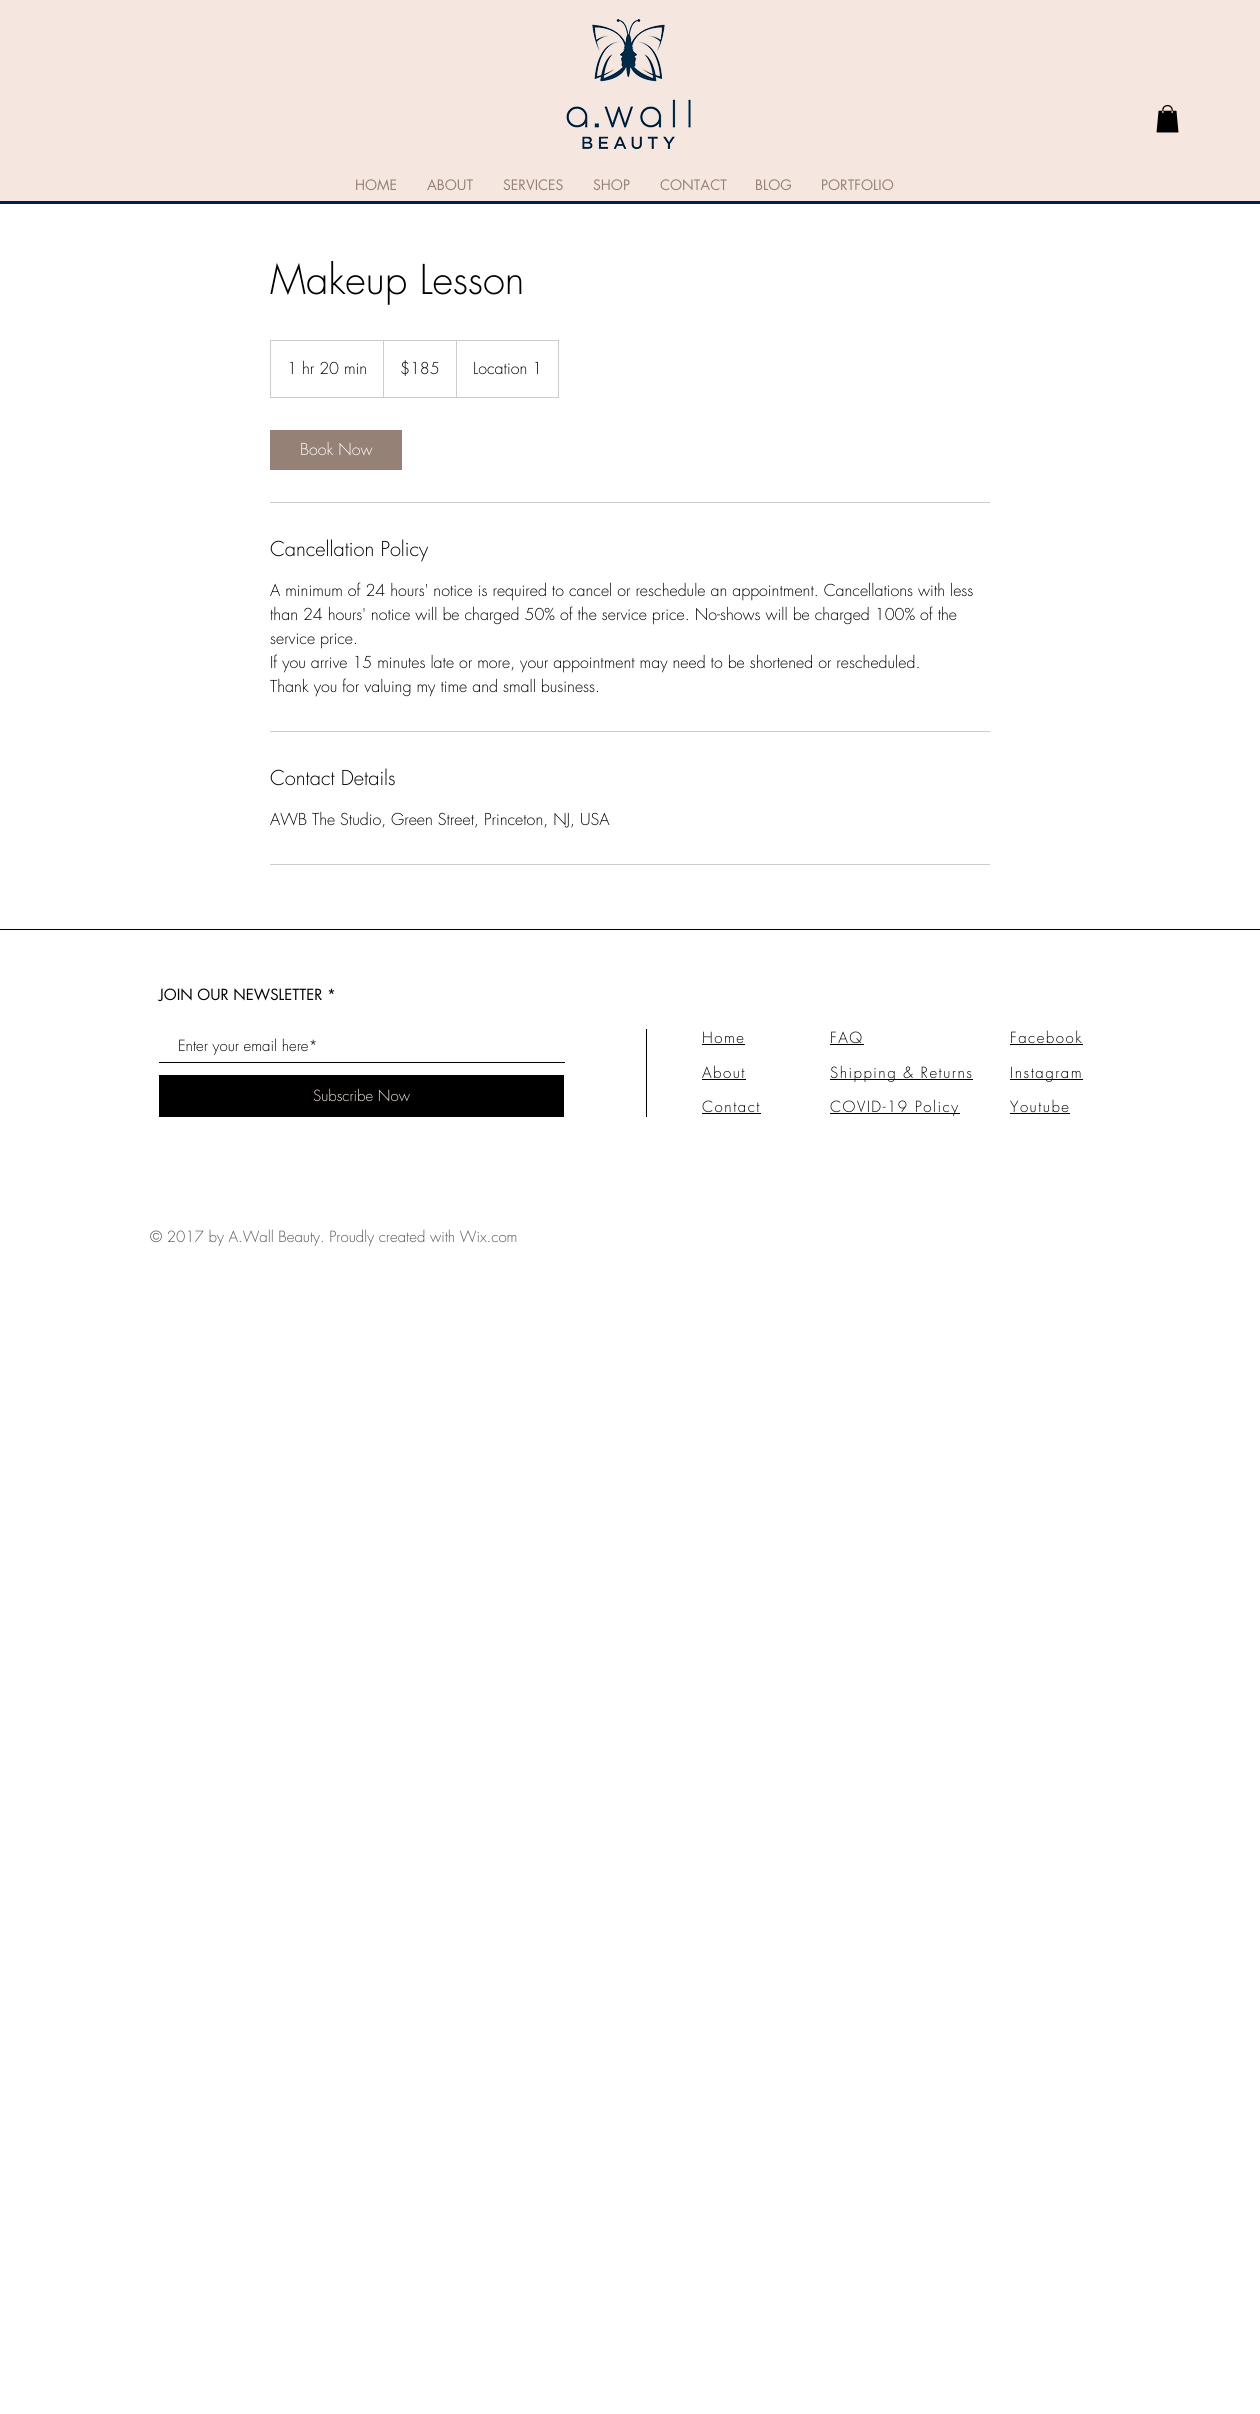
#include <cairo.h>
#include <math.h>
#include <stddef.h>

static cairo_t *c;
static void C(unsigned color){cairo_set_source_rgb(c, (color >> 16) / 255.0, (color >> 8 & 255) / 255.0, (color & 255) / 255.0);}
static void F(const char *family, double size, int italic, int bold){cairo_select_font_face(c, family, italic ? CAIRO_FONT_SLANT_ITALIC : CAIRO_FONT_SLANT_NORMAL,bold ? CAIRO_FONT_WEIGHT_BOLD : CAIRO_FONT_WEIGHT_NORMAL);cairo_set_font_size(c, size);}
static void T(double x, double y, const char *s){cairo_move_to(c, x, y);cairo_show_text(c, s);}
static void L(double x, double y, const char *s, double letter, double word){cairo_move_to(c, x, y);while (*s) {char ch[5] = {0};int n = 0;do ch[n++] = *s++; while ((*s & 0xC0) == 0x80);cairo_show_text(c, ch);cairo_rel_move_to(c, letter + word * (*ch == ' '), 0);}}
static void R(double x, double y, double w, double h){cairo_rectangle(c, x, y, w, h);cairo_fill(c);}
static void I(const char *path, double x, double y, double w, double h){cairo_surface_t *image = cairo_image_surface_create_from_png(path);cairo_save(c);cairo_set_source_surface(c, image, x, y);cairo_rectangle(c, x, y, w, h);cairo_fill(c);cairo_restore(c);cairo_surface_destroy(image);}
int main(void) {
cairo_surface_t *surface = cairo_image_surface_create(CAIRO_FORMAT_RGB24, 1260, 2414);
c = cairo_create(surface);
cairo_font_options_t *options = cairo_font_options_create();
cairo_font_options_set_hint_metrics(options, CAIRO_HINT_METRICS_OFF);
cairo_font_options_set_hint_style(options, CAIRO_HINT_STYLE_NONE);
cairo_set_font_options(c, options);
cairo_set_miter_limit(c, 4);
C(0xffffff);
cairo_paint(c);
C(0xf5e7df);
R(0,0,1260,201);
I("1.png",1156,105,23,28);
C(0x001e4d);
R(0,201,1260,3);
I("2.png",566,18,125,132);
F("futura",14,0,0);
C(0x958176);
T(355,190,"HOME");
T(427,190,"ABOUT");
T(503,190,"SERVICES");
T(593,190,"SHOP");
T(660,190,"CONTACT");
T(755,190,"BLOG");
T(821,190,"PORTFOLIO");
F("futura Light",40,0,0);
C(0x000000);
T(270,294,"Makeup Lesson");
cairo_rectangle(c,270.5,340.5,288,57);
C(0xcccccc);
cairo_set_line_width(c,1);
cairo_stroke(c);
F("futura Light",16,0,0);
C(0x000000);
T(287,374,"1 hr 20 min");
C(0xcccccc);
cairo_new_path(c);
cairo_move_to(c,383,397);
cairo_line_to(c,383,340);
cairo_line_to(c,384,341);
cairo_line_to(c,384,397);
cairo_close_path(c);
cairo_fill(c);
C(0x000000);
T(400,374,"$185");
C(0xcccccc);
cairo_new_path(c);
cairo_move_to(c,456,397);
cairo_line_to(c,456,340);
cairo_line_to(c,457,341);
cairo_line_to(c,457,397);
cairo_close_path(c);
cairo_fill(c);
C(0x000000);
T(473,374,"Location 1");
C(0x958176);
R(270,430,132,40);
C(0xffffff);
T(300,455,"Book Now");
C(0xcccccc);
R(270,502,720,1);
F("futura Light",20,0,0);
C(0x000000);
T(270,556,"Cancellation Policy");
F("futura Light",16,0,0);
T(270,596,"A minimum of 24 hours' notice is required to cancel or reschedule an appointment. Cancellations with less");
T(270,620,"than 24 hours' notice will be charged 50% of the service price. No-shows will be charged 100% of the");
T(270,644,"service price.");
T(270,668,"If you arrive 15 minutes late or more, your appointment may need to be shortened or rescheduled.");
T(270,692,"Thank you for valuing my time and small business.");
C(0xcccccc);
R(270,731,720,1);
F("futura Light",20,0,0);
C(0x000000);
T(270,785,"Contact Details");
F("futura Light",16,0,0);
T(270,825,"AWB The Studio, Green Street, Princeton, NJ, USA");
C(0xcccccc);
R(270,864,720,1);
C(0x000000);
R(0,929,1260,1);
F("futura",15,0,0);
T(159,1000,"JOIN OUR NEWSLETTER *");
R(159,1062,406,1);
F("futura Light",15,0,0);
T(178,1051,"Enter your email here*");
R(159,1075,405,42);
C(0xf5e7df);
T(313,1101,"Subscribe Now");
C(0x000000);
R(646,1029,1,88);
L(702,1043,"Home",1.5,0);
R(702,1044,43,1);
L(702,1078,"About",1.5,0);
R(702,1079,44,1);
L(702,1112,"Contact",1.5,0);
R(702,1113,59,1);
L(830,1043,"FAQ",1.5,0);
R(830,1044,34,1);
R(830,1079,143,1);
L(830,1078,"Shipping & Returns",1.5,0);
R(830,1113,130,1);
L(830,1112,"COVID-19 Policy",1.5,0);
L(1010,1043,"Facebook",1.5,0);
R(1010,1044,73,1);
R(1010,1079,73,1);
L(1010,1078,"Instagram",1.5,0);
L(1010,1112,"Youtube",1.5,0);
R(1010,1113,60,1);
C(0x555555);
T(150,1242,"© 2017 by A.Wall Beauty. Proudly created with Wix.com");
cairo_surface_write_to_png(surface, "o.png");
cairo_font_options_destroy(options);
cairo_destroy(c);
cairo_surface_destroy(surface);
return 0;
}
